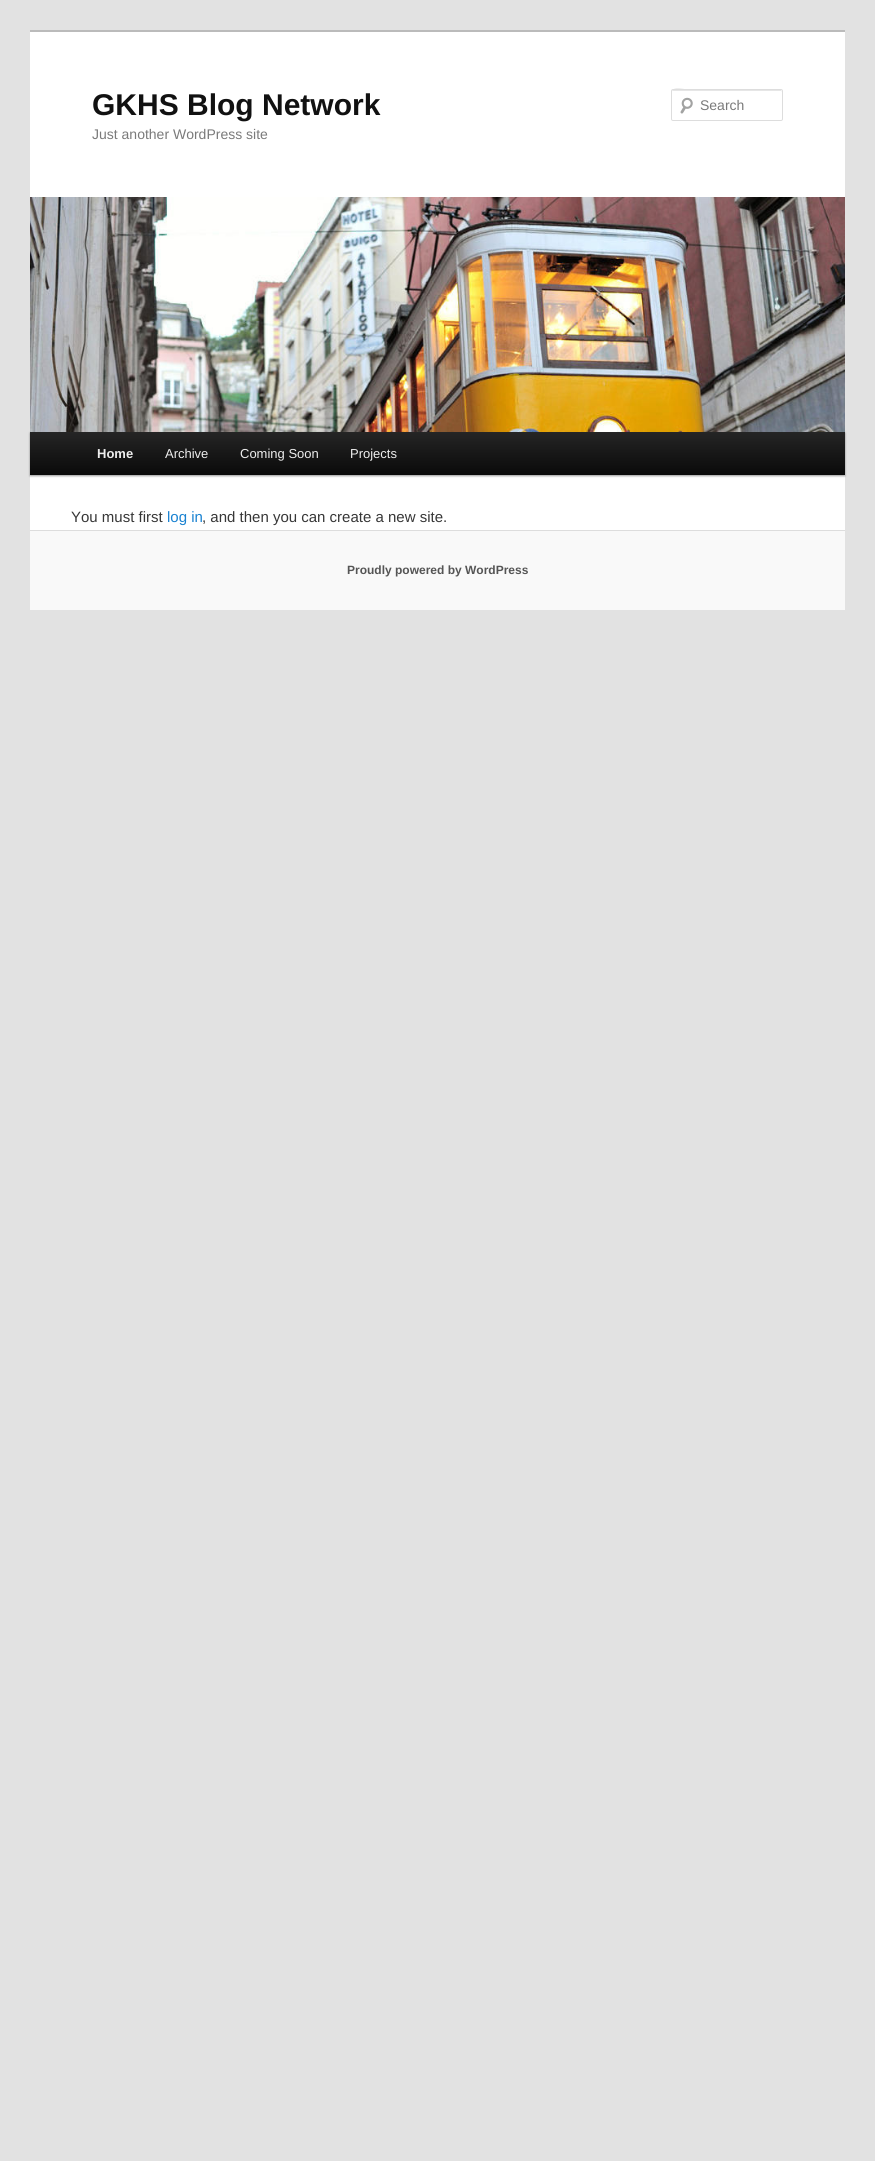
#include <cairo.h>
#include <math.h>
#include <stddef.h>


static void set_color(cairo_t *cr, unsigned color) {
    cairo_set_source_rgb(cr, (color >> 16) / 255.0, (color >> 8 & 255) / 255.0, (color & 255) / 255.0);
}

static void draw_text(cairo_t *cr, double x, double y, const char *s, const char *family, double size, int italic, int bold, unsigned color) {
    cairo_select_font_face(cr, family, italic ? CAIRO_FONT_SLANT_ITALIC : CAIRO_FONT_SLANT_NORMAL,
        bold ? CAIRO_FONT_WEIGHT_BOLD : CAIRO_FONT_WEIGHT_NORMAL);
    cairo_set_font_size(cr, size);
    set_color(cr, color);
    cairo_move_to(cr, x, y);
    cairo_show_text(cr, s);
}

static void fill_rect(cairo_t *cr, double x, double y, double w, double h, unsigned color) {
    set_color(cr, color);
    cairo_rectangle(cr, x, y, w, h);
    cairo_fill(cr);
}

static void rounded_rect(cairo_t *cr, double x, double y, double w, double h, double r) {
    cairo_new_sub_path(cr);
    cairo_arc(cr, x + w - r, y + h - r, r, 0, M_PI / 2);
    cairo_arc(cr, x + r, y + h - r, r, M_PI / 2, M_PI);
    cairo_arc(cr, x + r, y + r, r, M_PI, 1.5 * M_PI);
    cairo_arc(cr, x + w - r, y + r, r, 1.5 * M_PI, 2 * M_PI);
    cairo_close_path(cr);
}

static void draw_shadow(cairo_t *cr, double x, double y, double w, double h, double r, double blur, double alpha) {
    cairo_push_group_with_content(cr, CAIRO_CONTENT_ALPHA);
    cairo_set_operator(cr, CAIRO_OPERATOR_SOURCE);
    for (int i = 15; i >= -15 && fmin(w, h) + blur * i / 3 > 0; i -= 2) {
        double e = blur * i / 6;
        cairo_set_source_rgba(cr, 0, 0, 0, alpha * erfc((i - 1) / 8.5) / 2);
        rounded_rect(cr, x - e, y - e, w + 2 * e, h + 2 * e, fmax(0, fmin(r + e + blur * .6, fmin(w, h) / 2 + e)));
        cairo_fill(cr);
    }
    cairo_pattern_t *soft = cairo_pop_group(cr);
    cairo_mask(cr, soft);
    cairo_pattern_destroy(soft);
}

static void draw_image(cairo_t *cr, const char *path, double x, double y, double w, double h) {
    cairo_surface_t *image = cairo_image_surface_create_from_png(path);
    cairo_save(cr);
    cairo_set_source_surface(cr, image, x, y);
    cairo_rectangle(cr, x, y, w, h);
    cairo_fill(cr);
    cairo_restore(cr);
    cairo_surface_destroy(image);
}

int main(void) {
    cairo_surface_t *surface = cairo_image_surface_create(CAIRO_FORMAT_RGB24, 875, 2161);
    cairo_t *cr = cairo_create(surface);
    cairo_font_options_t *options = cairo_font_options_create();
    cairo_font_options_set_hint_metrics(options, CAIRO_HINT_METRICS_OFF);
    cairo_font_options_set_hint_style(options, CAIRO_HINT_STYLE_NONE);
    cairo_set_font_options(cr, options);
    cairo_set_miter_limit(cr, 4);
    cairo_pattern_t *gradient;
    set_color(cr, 0xE2E2E2);
    cairo_paint(cr);
    fill_rect(cr, 30, 32, 815, 498, 0xFFFFFF);
    fill_rect(cr, 30, 30, 815, 2, 0xBBBBBB);
    draw_text(cr, 92, 115, "GKHS Blog Network", "Liberation Sans", 30, 0, 1, 0x111111);
    draw_text(cr, 92, 139, "Just another WordPress site", "Liberation Sans", 14, 0, 0, 0x7A7A7A);
    draw_image(cr, "assets/img1.png", 680, 97, 13, 17);
    set_color(cr, 0xE6E6E6);
    cairo_new_path(cr);
    cairo_move_to(cr, 673, 91);
    cairo_line_to(cr, 782, 91);
    cairo_line_to(cr, 782, 92);
    cairo_line_to(cr, 781, 90);
    cairo_line_to(cr, 691, 90);
    cairo_curve_to(cr, 687, 90, 672, 85, 672, 92);
    cairo_curve_to(cr, 672, 91, 672, 91, 673, 91);
    cairo_close_path(cr);
    cairo_fill(cr);
    rounded_rect(cr, 671.5, 89.5, 111, 31, 1.5);
    set_color(cr, 0xDDDDDD);
    cairo_set_line_width(cr, 1);
    cairo_stroke(cr);
    draw_text(cr, 700, 110, "Search", "Liberation Sans", 14, 0, 0, 0x7A7A7A);
    set_color(cr, 0x000000);
    draw_shadow(cr, 30, 433, 815, 43, 0, 1, 0.4);
    draw_image(cr, "assets/img2.png", 30, 197, 815, 235);
    gradient = cairo_pattern_create_linear(438, 432, 438, 475);
    cairo_pattern_add_color_stop_rgba(gradient, 0, 0.145, 0.145, 0.145, 1);
    cairo_pattern_add_color_stop_rgba(gradient, 1, 0.039, 0.039, 0.039, 1);
    cairo_set_source(cr, gradient);
    cairo_pattern_destroy(gradient);
    cairo_rectangle(cr, 30, 432, 815, 43);
    cairo_fill(cr);
    draw_text(cr, 97, 458, "Home", "Liberation Sans", 13, 0, 1, 0xEEEEEE);
    draw_text(cr, 165, 458, "Archive", "Liberation Sans", 13, 0, 0, 0xEEEEEE);
    draw_text(cr, 240, 458, "Coming Soon", "Liberation Sans", 13, 0, 0, 0xEEEEEE);
    draw_text(cr, 350, 458, "Projects", "Liberation Sans", 13, 0, 0, 0xEEEEEE);
    draw_text(cr, 71, 522, "You must first", "Liberation Sans", 15, 0, 0, 0x373737);
    draw_text(cr, 167, 522, "log in", "Liberation Sans", 15, 0, 0, 0x1982D1);
    draw_text(cr, 202, 522, ", and then you can create a new site.", "Liberation Sans", 15, 0, 0, 0x373737);
    fill_rect(cr, 30, 531, 815, 79, 0xF9F9F9);
    fill_rect(cr, 30, 530, 815, 1, 0xDDDDDD);
    draw_text(cr, 347, 574, "Proudly powered by WordPress", "Liberation Sans", 12, 0, 1, 0x555555);
    cairo_surface_write_to_png(surface, "output.png");
    cairo_font_options_destroy(options);
    cairo_destroy(cr);
    cairo_surface_destroy(surface);
    return 0;
}
